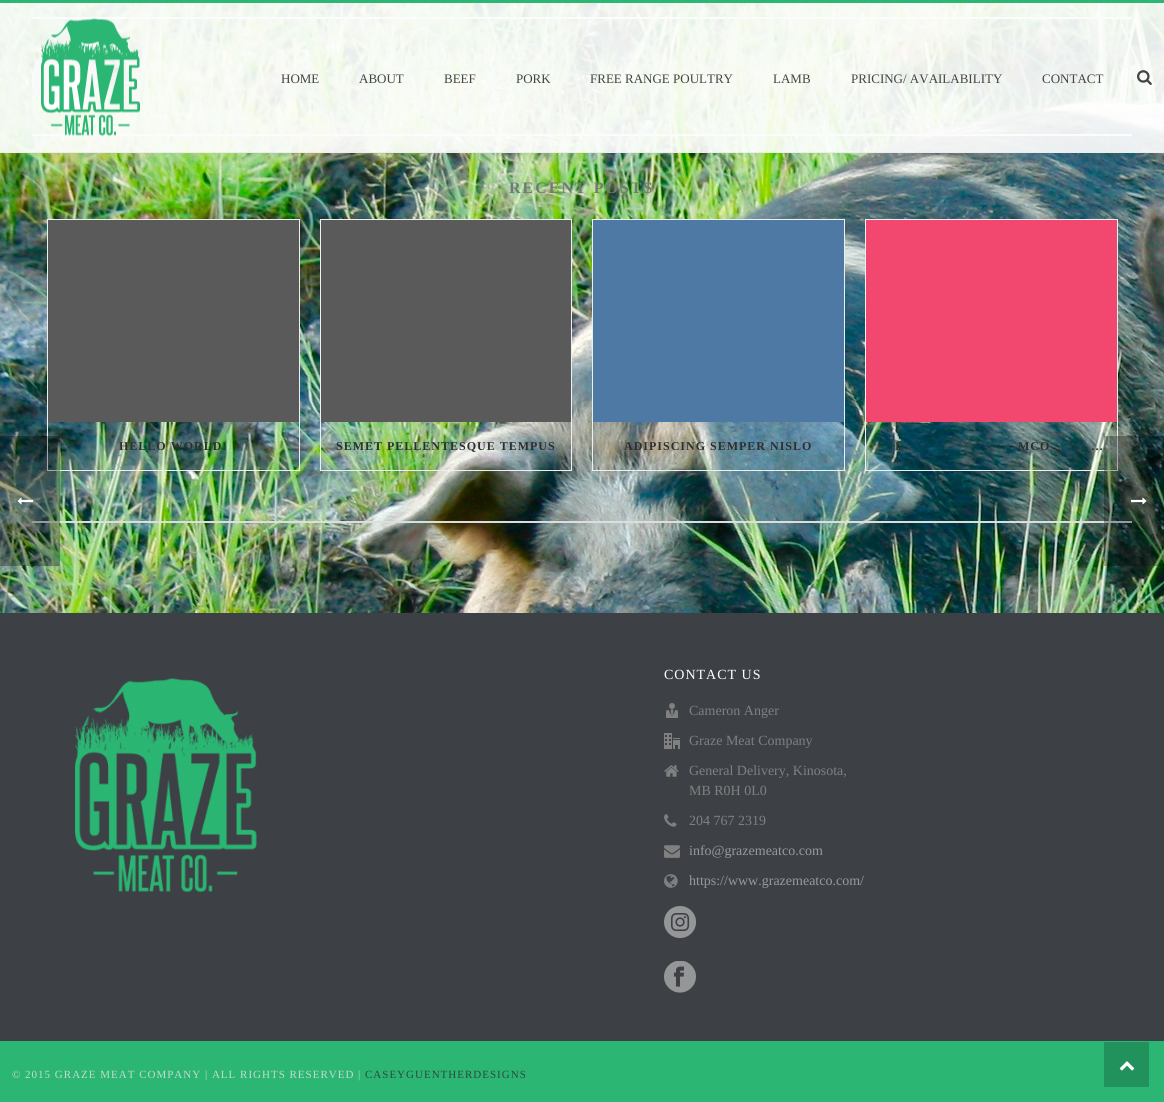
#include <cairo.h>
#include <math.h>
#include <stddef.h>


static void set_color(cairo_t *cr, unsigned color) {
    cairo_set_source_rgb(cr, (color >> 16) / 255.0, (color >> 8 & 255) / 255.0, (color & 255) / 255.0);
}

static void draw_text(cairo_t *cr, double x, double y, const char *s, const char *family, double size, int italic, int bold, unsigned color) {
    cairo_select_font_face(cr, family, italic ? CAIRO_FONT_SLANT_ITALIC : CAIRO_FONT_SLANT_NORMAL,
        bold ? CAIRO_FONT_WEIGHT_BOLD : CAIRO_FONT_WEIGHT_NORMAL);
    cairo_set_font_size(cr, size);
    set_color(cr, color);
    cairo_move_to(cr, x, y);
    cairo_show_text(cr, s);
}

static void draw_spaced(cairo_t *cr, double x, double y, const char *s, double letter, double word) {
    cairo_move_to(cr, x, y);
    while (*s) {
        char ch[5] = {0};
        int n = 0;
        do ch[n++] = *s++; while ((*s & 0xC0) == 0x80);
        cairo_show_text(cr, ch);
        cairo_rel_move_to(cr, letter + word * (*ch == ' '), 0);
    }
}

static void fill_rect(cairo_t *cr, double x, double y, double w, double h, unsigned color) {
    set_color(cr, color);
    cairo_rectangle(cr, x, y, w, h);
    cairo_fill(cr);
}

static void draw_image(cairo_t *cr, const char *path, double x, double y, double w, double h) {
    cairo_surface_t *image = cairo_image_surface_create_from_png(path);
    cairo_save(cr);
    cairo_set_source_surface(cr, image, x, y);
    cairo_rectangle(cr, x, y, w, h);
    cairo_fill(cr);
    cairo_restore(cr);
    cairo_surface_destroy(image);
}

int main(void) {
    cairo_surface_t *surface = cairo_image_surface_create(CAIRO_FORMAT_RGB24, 1164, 1102);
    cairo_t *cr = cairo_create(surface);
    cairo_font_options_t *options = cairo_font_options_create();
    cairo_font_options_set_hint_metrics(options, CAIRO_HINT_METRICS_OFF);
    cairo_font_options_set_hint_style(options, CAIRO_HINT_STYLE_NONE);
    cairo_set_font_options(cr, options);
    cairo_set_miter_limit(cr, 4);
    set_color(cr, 0x3D4045);
    cairo_paint(cr);
    fill_rect(cr, 0, 0, 1164, 3, 0x2BB673);
    draw_image(cr, "assets/img3.png", 0, 3, 1164, 610);
    fill_rect(cr, 0, 152, 1164, 1, 0xEDEDED);
    fill_rect(cr, 32, 17, 1100, 2, 0xDDDDDD);
    fill_rect(cr, 32, 134, 1100, 2, 0xDDDDDD);
    cairo_arc(cr, 65.5, 80.5, 33, 0, 2 * M_PI);
    set_color(cr, 0xEEEEEE);
    cairo_set_line_width(cr, 1);
    cairo_stroke(cr);
    draw_image(cr, "assets/img4.png", 33, 48, 65, 65);
    draw_image(cr, "assets/img5.png", 116, 74, 16, 12);
    cairo_set_source_rgba(cr, 1, 1, 1, 0.9);
    cairo_rectangle(cr, 0, 3, 1164, 149);
    cairo_fill(cr);
    draw_image(cr, "assets/img1.png", 41, 18, 99, 118);
    draw_text(cr, 281, 83, "HOME", "Liberation Serif", 13, 0, 0, 0x444444);
    draw_text(cr, 359, 83, "ABOUT", "Liberation Serif", 13, 0, 0, 0x444444);
    draw_text(cr, 444, 83, "BEEF", "Liberation Serif", 13, 0, 0, 0x444444);
    draw_text(cr, 516, 83, "PORK", "Liberation Serif", 13, 0, 0, 0x444444);
    draw_text(cr, 590, 83, "FREE RANGE POULTRY", "Liberation Serif", 13, 0, 0, 0x444444);
    draw_text(cr, 773, 83, "LAMB", "Liberation Serif", 13, 0, 0, 0x444444);
    draw_text(cr, 851, 83, "PRICING/ AVAILABILITY", "Liberation Serif", 13, 0, 0, 0x444444);
    draw_text(cr, 1042, 83, "CONTACT", "Liberation Serif", 13, 0, 0, 0x444444);
    draw_image(cr, "assets/img2.png", 1137, 70, 15, 15);
    fill_rect(cr, 32, 521, 1100, 2, 0xDDDDDD);
    cairo_select_font_face(cr, "Liberation Serif", CAIRO_FONT_SLANT_NORMAL, CAIRO_FONT_WEIGHT_BOLD);
    cairo_set_font_size(cr, 16);
    set_color(cr, 0x777777);
    draw_spaced(cr, 509, 193, "RECENT POSTS", 2, 0);
    cairo_rectangle(cr, 47.5, 219.5, 252, 251);
    set_color(cr, 0xEFEFEF);
    cairo_stroke(cr);
    fill_rect(cr, 48, 220, 251, 202, 0x5A5A5A);
    cairo_set_font_size(cr, 12);
    set_color(cr, 0x2E2E2E);
    draw_spaced(cr, 119, 450, "HELLO WORLD!", 1, 0);
    cairo_rectangle(cr, 320.5, 219.5, 251, 251);
    set_color(cr, 0xEFEFEF);
    cairo_stroke(cr);
    fill_rect(cr, 321, 220, 250, 202, 0x5A5A5A);
    set_color(cr, 0x2E2E2E);
    draw_spaced(cr, 336, 450, "SEMET PELLENTESQUE TEMPUS", 1, 0);
    cairo_rectangle(cr, 592.5, 219.5, 252, 251);
    set_color(cr, 0xEFEFEF);
    cairo_stroke(cr);
    fill_rect(cr, 593, 220, 251, 202, 0x4E79A5);
    set_color(cr, 0x2E2E2E);
    draw_spaced(cr, 624, 450, "ADIPISCING SEMPER NISLO", 1, 0);
    cairo_rectangle(cr, 865.5, 219.5, 252, 251);
    set_color(cr, 0xEFEFEF);
    cairo_stroke(cr);
    fill_rect(cr, 866, 220, 251, 202, 0xF2486F);
    set_color(cr, 0x2E2E2E);
    draw_spaced(cr, 895, 450, "L", 1, 0);
    draw_spaced(cr, 1018, 450, "MCO", 1, 0);
    draw_spaced(cr, 1091, 450, "…", 1, 0);
    draw_image(cr, "assets/img6.png", 75, 678, 182, 215);
    cairo_select_font_face(cr, "Liberation Serif", CAIRO_FONT_SLANT_NORMAL, CAIRO_FONT_WEIGHT_NORMAL);
    cairo_set_font_size(cr, 14);
    set_color(cr, 0xFFFFFF);
    draw_spaced(cr, 664, 679, "CONTACT US", 1, 0);
    draw_image(cr, "assets/img7.png", 666, 703, 12, 15);
    draw_text(cr, 689, 715, "Cameron Anger", "Liberation Serif", 14, 0, 0, 0x808080);
    draw_image(cr, "assets/img8.png", 664, 733, 16, 16);
    draw_text(cr, 689, 745, "Graze Meat Company", "Liberation Serif", 14, 0, 0, 0x808080);
    draw_image(cr, "assets/img9.png", 664, 765, 15, 12);
    draw_text(cr, 689, 775, "General Delivery, Kinosota,", "Liberation Serif", 14, 0, 0, 0x808080);
    draw_text(cr, 689, 795, "MB R0H 0L0", "Liberation Serif", 14, 0, 0, 0x808080);
    draw_image(cr, "assets/img10.png", 664, 814, 13, 13);
    draw_text(cr, 689, 825, "204 767 2319", "Liberation Serif", 14, 0, 0, 0x808080);
    draw_image(cr, "assets/img11.png", 664, 845, 16, 13);
    draw_text(cr, 689, 855, "info@grazemeatco.com", "Liberation Serif", 14, 0, 0, 0x999999);
    draw_image(cr, "assets/img12.png", 664, 874, 14, 14);
    draw_text(cr, 689, 885, "https://www.grazemeatco.com/", "Liberation Serif", 14, 0, 0, 0x999999);
    draw_image(cr, "assets/img13.png", 664, 906, 32, 32);
    draw_image(cr, "assets/img14.png", 664, 961, 32, 32);
    fill_rect(cr, 0, 1041, 1164, 61, 0x2BB673);
    cairo_set_font_size(cr, 11);
    set_color(cr, 0xC2DCCB);
    draw_spaced(cr, 12, 1078, "© 2015 GRAZE MEAT COMPANY | ALL RIGHTS RESERVED |", 1, 0);
    set_color(cr, 0x2D493C);
    draw_spaced(cr, 365, 1078, "CASEYGUENTHERDESIGNS", 1, 0);
    cairo_set_source_rgba(cr, 0, 0, 0, 0.3);
    cairo_rectangle(cr, 0, 436, 60, 130);
    cairo_fill(cr);
    draw_image(cr, "assets/img15.png", 17, 497, 16, 8);
    cairo_rectangle(cr, 1104, 436, 60, 130);
    cairo_fill(cr);
    draw_image(cr, "assets/img16.png", 1131, 497, 16, 8);
    fill_rect(cr, 1104, 1042, 45, 45, 0x22925C);
    draw_image(cr, "assets/img17.png", 1119, 1061, 16, 10);
    cairo_surface_write_to_png(surface, "output.png");
    cairo_font_options_destroy(options);
    cairo_destroy(cr);
    cairo_surface_destroy(surface);
    return 0;
}
